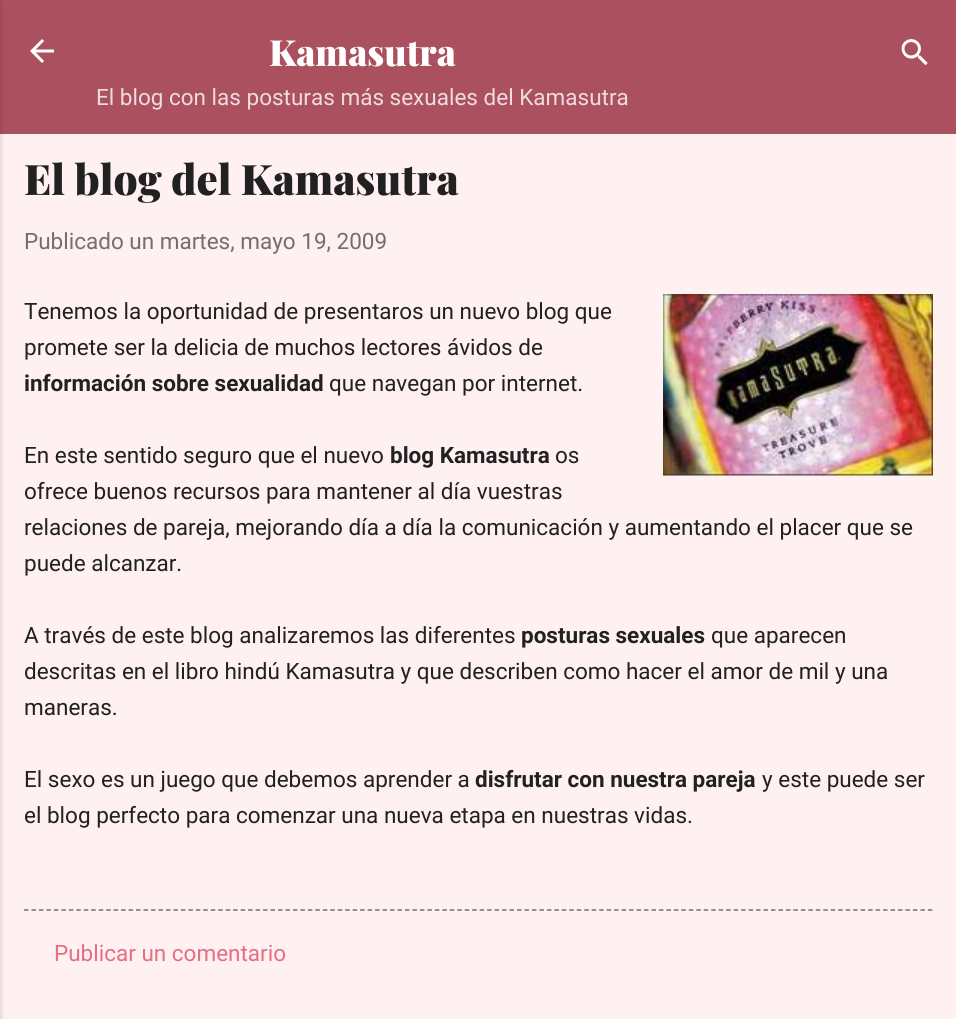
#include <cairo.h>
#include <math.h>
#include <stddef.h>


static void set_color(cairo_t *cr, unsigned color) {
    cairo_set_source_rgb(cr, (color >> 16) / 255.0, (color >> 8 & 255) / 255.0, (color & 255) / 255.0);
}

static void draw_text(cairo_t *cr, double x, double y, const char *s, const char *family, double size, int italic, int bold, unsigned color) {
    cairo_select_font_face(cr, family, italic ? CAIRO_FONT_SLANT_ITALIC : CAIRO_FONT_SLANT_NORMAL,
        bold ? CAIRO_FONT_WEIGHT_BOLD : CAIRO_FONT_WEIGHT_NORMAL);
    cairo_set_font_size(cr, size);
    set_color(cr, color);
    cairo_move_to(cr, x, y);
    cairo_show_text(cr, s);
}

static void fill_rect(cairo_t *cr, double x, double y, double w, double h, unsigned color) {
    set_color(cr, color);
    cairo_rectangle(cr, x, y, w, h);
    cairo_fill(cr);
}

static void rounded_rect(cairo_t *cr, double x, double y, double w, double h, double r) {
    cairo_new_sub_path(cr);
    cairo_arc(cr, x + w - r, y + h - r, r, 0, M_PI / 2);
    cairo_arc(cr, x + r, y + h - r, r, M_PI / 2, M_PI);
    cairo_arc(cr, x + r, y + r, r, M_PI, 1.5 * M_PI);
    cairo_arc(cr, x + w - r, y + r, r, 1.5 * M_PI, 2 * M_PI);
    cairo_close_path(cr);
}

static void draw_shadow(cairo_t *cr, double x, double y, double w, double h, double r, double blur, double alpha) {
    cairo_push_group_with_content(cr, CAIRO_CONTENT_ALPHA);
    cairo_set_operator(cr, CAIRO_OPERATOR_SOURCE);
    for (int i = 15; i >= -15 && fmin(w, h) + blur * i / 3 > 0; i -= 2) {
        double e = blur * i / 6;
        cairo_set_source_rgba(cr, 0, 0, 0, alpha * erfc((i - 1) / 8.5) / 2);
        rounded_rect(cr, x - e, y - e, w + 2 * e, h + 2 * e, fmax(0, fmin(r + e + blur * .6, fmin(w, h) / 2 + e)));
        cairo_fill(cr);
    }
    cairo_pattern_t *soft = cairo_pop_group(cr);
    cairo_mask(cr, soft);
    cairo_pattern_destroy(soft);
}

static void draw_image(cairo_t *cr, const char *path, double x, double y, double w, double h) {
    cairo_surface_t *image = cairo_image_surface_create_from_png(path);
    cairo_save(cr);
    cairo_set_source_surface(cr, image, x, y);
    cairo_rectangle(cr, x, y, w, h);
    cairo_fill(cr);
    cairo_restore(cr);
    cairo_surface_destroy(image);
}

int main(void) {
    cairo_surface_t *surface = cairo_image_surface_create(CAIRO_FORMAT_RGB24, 956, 1019);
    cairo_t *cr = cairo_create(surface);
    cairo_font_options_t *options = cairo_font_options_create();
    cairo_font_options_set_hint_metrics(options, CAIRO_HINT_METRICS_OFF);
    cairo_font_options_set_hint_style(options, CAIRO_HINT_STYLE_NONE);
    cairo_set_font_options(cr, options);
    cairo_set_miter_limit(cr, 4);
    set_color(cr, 0xAB505F);
    cairo_paint(cr);
    fill_rect(cr, 0, 134, 956, 885, 0xFFF0F2);
    set_color(cr, 0x000000);
    draw_shadow(cr, -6, 2, 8, 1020, 0, 2, 0.1);
    draw_image(cr, "assets/img1.png", 30, 39, 24, 24);
    draw_text(cr, 269, 66, "Kamasutra", "Playfair Display Black", 36, 0, 0, 0xFFFFFF);
    draw_text(cr, 96, 105, "El blog con las posturas más sexuales del Kamasutra", "Roboto", 22.5, 0, 0, 0xEEDCDF);
    draw_image(cr, "assets/img2.png", 901, 39, 27, 27);
    draw_text(cr, 24, 195, "El blog del Kamasutra", "Playfair Display Black", 42, 0, 0, 0x212121);
    draw_text(cr, 24, 249, "Publicado un martes, mayo 19, 2009", "Roboto", 22.5, 0, 0, 0x756E6F);
    draw_text(cr, 24, 319, "Tenemos la oportunidad de presentaros un nuevo blog que", "Roboto", 22.5, 0, 0, 0x212121);
    draw_image(cr, "assets/img3.png", 663, 294, 270, 182);
    draw_text(cr, 24, 355, "promete ser la delicia de muchos lectores ávidos de", "Roboto", 22.5, 0, 0, 0x212121);
    draw_text(cr, 24, 391, "información sobre sexualidad", "Roboto", 22.5, 0, 1, 0x212121);
    draw_text(cr, 329, 391, "que navegan por internet.", "Roboto", 22.5, 0, 0, 0x212121);
    draw_text(cr, 24, 463, "En este sentido seguro que el nuevo", "Roboto", 22.5, 0, 0, 0x212121);
    draw_text(cr, 390, 463, "blog Kamasutra", "Roboto", 22.5, 0, 1, 0x212121);
    draw_text(cr, 555, 463, "os", "Roboto", 22.5, 0, 0, 0x212121);
    draw_text(cr, 24, 499, "ofrece buenos recursos para mantener al día vuestras", "Roboto", 22.5, 0, 0, 0x212121);
    draw_text(cr, 24, 535, "relaciones de pareja, mejorando día a día la comunicación y aumentando el placer que se", "Roboto", 22.5, 0, 0, 0x212121);
    draw_text(cr, 24, 571, "puede alcanzar.", "Roboto", 22.5, 0, 0, 0x212121);
    draw_text(cr, 24, 643, "A través de este blog analizaremos las diferentes", "Roboto", 22.5, 0, 0, 0x212121);
    draw_text(cr, 521, 643, "posturas sexuales", "Roboto", 22.5, 0, 1, 0x212121);
    draw_text(cr, 711, 643, "que aparecen", "Roboto", 22.5, 0, 0, 0x212121);
    draw_text(cr, 24, 679, "descritas en el libro hindú Kamasutra y que describen como hacer el amor de mil y una", "Roboto", 22.5, 0, 0, 0x212121);
    draw_text(cr, 24, 715, "maneras.", "Roboto", 22.5, 0, 0, 0x212121);
    draw_text(cr, 24, 787, "El sexo es un juego que debemos aprender a", "Roboto", 22.5, 0, 0, 0x212121);
    draw_text(cr, 475, 787, "disfrutar con nuestra pareja", "Roboto", 22.5, 0, 1, 0x212121);
    draw_text(cr, 762, 787, "y este puede ser", "Roboto", 22.5, 0, 0, 0x212121);
    draw_text(cr, 24, 823, "el blog perfecto para comenzar una nueva etapa en nuestras vidas.", "Roboto", 22.5, 0, 0, 0x212121);
    cairo_new_path(cr);
    cairo_move_to(cr, 24, 910);
    cairo_line_to(cr, 933, 910);
    set_color(cr, 0x756E6F);
    cairo_set_line_width(cr, 1.5);
    cairo_set_dash(cr, (double[]){4.5, 2.97}, 2, 0);
    cairo_stroke(cr);
    draw_text(cr, 54, 961, "Publicar un comentario", "Roboto", 22.5, 0, 0, 0xE76D80);
    cairo_surface_write_to_png(surface, "output.png");
    cairo_font_options_destroy(options);
    cairo_destroy(cr);
    cairo_surface_destroy(surface);
    return 0;
}
